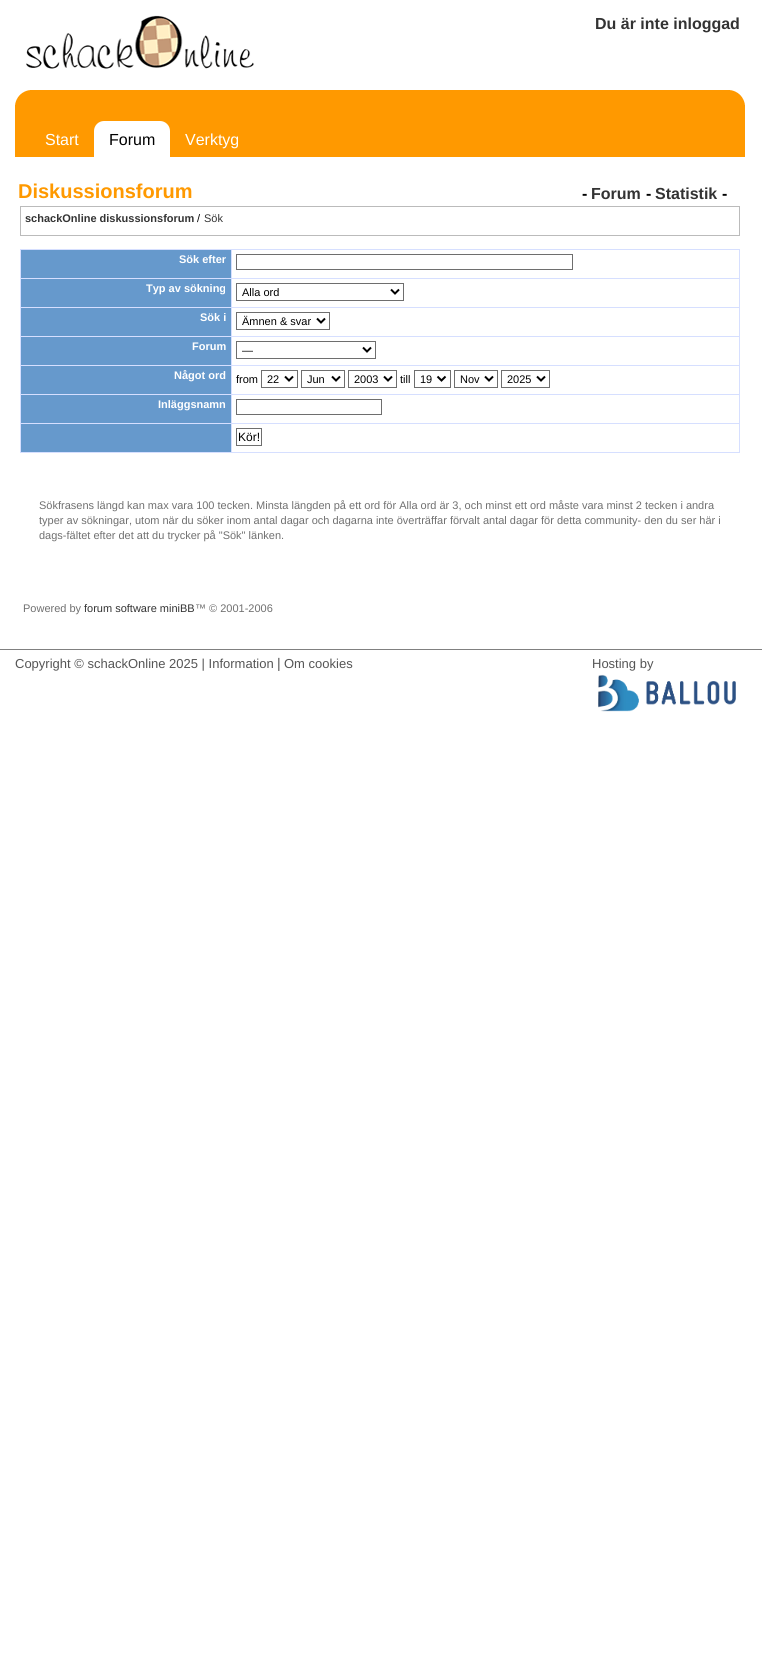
#include <cairo.h>
#include <math.h>
#include <stddef.h>


static void set_color(cairo_t *cr, unsigned color) {
    cairo_set_source_rgb(cr, (color >> 16) / 255.0, (color >> 8 & 255) / 255.0, (color & 255) / 255.0);
}

static void draw_text(cairo_t *cr, double x, double y, const char *s, const char *family, double size, int italic, int bold, unsigned color) {
    cairo_select_font_face(cr, family, italic ? CAIRO_FONT_SLANT_ITALIC : CAIRO_FONT_SLANT_NORMAL,
        bold ? CAIRO_FONT_WEIGHT_BOLD : CAIRO_FONT_WEIGHT_NORMAL);
    cairo_set_font_size(cr, size);
    set_color(cr, color);
    cairo_move_to(cr, x, y);
    cairo_show_text(cr, s);
}

static void fill_rect(cairo_t *cr, double x, double y, double w, double h, unsigned color) {
    set_color(cr, color);
    cairo_rectangle(cr, x, y, w, h);
    cairo_fill(cr);
}

static void draw_image(cairo_t *cr, const char *path, double x, double y, double w, double h) {
    cairo_surface_t *image = cairo_image_surface_create_from_png(path);
    cairo_save(cr);
    cairo_set_source_surface(cr, image, x, y);
    cairo_rectangle(cr, x, y, w, h);
    cairo_fill(cr);
    cairo_restore(cr);
    cairo_surface_destroy(image);
}

int main(void) {
    cairo_surface_t *surface = cairo_image_surface_create(CAIRO_FORMAT_RGB24, 762, 1668);
    cairo_t *cr = cairo_create(surface);
    cairo_font_options_t *options = cairo_font_options_create();
    cairo_font_options_set_hint_metrics(options, CAIRO_HINT_METRICS_OFF);
    cairo_font_options_set_hint_style(options, CAIRO_HINT_STYLE_NONE);
    cairo_set_font_options(cr, options);
    cairo_set_miter_limit(cr, 4);
    set_color(cr, 0xFFFFFF);
    cairo_paint(cr);
    draw_image(cr, "assets/img1.png", 26, 15, 228, 54);
    draw_text(cr, 595, 29, "Du är inte inloggad", "Liberation Sans", 16, 0, 1, 0x333333);
    fill_rect(cr, 15, 90, 730, 67, 0xFF9900);
    draw_image(cr, "assets/img2.png", 730, 90, 15, 15);
    draw_image(cr, "assets/img3.png", 15, 90, 15, 15);
    draw_text(cr, 45, 145, "Start", "Liberation Sans", 16, 0, 0, 0xFFFFFF);
    cairo_new_path(cr);
    cairo_move_to(cr, 104, 121);
    cairo_line_to(cr, 160, 121);
    cairo_curve_to(cr, 165.5, 121, 170, 125.5, 170, 131);
    cairo_line_to(cr, 170, 157);
    cairo_line_to(cr, 94, 157);
    cairo_line_to(cr, 94, 131);
    cairo_curve_to(cr, 94, 125.5, 98.5, 121, 104, 121);
    cairo_close_path(cr);
    cairo_fill(cr);
    draw_text(cr, 109, 145, "Forum", "Liberation Sans", 16, 0, 0, 0x000000);
    draw_text(cr, 185, 145, "Verktyg", "Liberation Sans", 16, 0, 0, 0xFFFFFF);
    draw_text(cr, 18, 198, "Diskussionsforum", "Liberation Sans", 20, 0, 1, 0xFF9900);
    draw_text(cr, 582, 199, "-", "Liberation Sans", 16, 0, 1, 0x000000);
    draw_text(cr, 591, 199, "Forum", "Liberation Sans", 16, 0, 1, 0x333333);
    draw_text(cr, 646, 199, "-", "Liberation Sans", 16, 0, 1, 0x000000);
    draw_text(cr, 655, 199, "Statistik", "Liberation Sans", 16, 0, 1, 0x333333);
    draw_text(cr, 722, 199, "-", "Liberation Sans", 16, 0, 1, 0x000000);
    fill_rect(cr, 20, 206, 720, 1, 0xBBBBBB);
    fill_rect(cr, 739, 206, 1, 30, 0xBBBBBB);
    fill_rect(cr, 20, 235, 720, 1, 0xBBBBBB);
    fill_rect(cr, 20, 206, 1, 30, 0xBBBBBB);
    draw_text(cr, 25, 222, "schackOnline diskussionsforum", "Liberation Sans", 11, 0, 1, 0x333333);
    draw_text(cr, 197, 222, "/", "Liberation Sans", 11, 0, 0, 0x000000);
    draw_text(cr, 204, 222, "Sök", "Liberation Sans", 11, 0, 0, 0x333333);
    fill_rect(cr, 21, 250, 210, 28, 0x6699CC);
    fill_rect(cr, 231, 249, 509, 1, 0xD6DFFF);
    fill_rect(cr, 231, 278, 509, 1, 0xD6DFFF);
    fill_rect(cr, 231, 307, 509, 1, 0xD6DFFF);
    fill_rect(cr, 231, 336, 509, 1, 0xD6DFFF);
    fill_rect(cr, 231, 365, 509, 1, 0xD6DFFF);
    fill_rect(cr, 231, 394, 509, 1, 0xD6DFFF);
    fill_rect(cr, 231, 423, 509, 1, 0xD6DFFF);
    fill_rect(cr, 739, 423, 1, 30, 0xD6DFFF);
    fill_rect(cr, 231, 452, 509, 1, 0xD6DFFF);
    fill_rect(cr, 231, 423, 1, 30, 0xD6DFFF);
    fill_rect(cr, 20, 423, 212, 1, 0xD6DFFF);
    fill_rect(cr, 231, 394, 1, 30, 0xD6DFFF);
    fill_rect(cr, 20, 394, 212, 1, 0xD6DFFF);
    fill_rect(cr, 231, 365, 1, 30, 0xD6DFFF);
    fill_rect(cr, 20, 365, 212, 1, 0xD6DFFF);
    fill_rect(cr, 231, 336, 1, 30, 0xD6DFFF);
    fill_rect(cr, 20, 336, 212, 1, 0xD6DFFF);
    fill_rect(cr, 231, 307, 1, 30, 0xD6DFFF);
    fill_rect(cr, 20, 307, 212, 1, 0xD6DFFF);
    fill_rect(cr, 231, 278, 1, 30, 0xD6DFFF);
    fill_rect(cr, 20, 278, 212, 1, 0xD6DFFF);
    fill_rect(cr, 231, 249, 1, 30, 0xD6DFFF);
    fill_rect(cr, 20, 249, 212, 1, 0xD6DFFF);
    fill_rect(cr, 20, 452, 212, 1, 0xD6DFFF);
    fill_rect(cr, 20, 423, 1, 30, 0xD6DFFF);
    fill_rect(cr, 20, 394, 1, 30, 0xD6DFFF);
    fill_rect(cr, 20, 365, 1, 30, 0xD6DFFF);
    fill_rect(cr, 20, 336, 1, 30, 0xD6DFFF);
    fill_rect(cr, 20, 307, 1, 30, 0xD6DFFF);
    fill_rect(cr, 20, 278, 1, 30, 0xD6DFFF);
    fill_rect(cr, 20, 249, 1, 30, 0xD6DFFF);
    draw_text(cr, 179, 263, "Sök efter", "Liberation Sans", 11, 0, 1, 0xFFFFFF);
    fill_rect(cr, 739, 394, 1, 30, 0xD6DFFF);
    fill_rect(cr, 739, 365, 1, 30, 0xD6DFFF);
    fill_rect(cr, 739, 336, 1, 30, 0xD6DFFF);
    fill_rect(cr, 739, 307, 1, 30, 0xD6DFFF);
    fill_rect(cr, 739, 278, 1, 30, 0xD6DFFF);
    fill_rect(cr, 739, 249, 1, 30, 0xD6DFFF);
    cairo_rectangle(cr, 236.5, 254.5, 336, 15);
    set_color(cr, 0x6E6E6E);
    cairo_set_line_width(cr, 1);
    cairo_stroke(cr);
    fill_rect(cr, 21, 279, 210, 28, 0x6699CC);
    draw_text(cr, 146, 292, "Typ av sökning", "Liberation Sans", 11, 0, 1, 0xFFFFFF);
    cairo_rectangle(cr, 236.5, 283.5, 167, 17);
    set_color(cr, 0x6E6E6E);
    cairo_stroke(cr);
    cairo_new_path(cr);
    cairo_move_to(cr, 391, 289.5);
    cairo_line_to(cr, 395, 293.5);
    cairo_line_to(cr, 399, 289.5);
    set_color(cr, 0x000000);
    cairo_set_line_width(cr, 2);
    cairo_stroke(cr);
    draw_text(cr, 242, 296, "Alla ord", "Liberation Sans", 11, 0, 0, 0x000000);
    fill_rect(cr, 21, 308, 210, 28, 0x6699CC);
    draw_text(cr, 200, 321, "Sök i", "Liberation Sans", 11, 0, 1, 0xFFFFFF);
    cairo_rectangle(cr, 236.5, 312.5, 93, 17);
    set_color(cr, 0x6E6E6E);
    cairo_set_line_width(cr, 1);
    cairo_stroke(cr);
    cairo_new_path(cr);
    cairo_move_to(cr, 317, 318.5);
    cairo_line_to(cr, 321, 322.5);
    cairo_line_to(cr, 325, 318.5);
    set_color(cr, 0x000000);
    cairo_set_line_width(cr, 2);
    cairo_stroke(cr);
    draw_text(cr, 242, 325, "Ämnen & svar", "Liberation Sans", 11, 0, 0, 0x000000);
    fill_rect(cr, 21, 337, 210, 28, 0x6699CC);
    draw_text(cr, 192, 350, "Forum", "Liberation Sans", 11, 0, 1, 0xFFFFFF);
    cairo_rectangle(cr, 236.5, 341.5, 139, 17);
    set_color(cr, 0x6E6E6E);
    cairo_set_line_width(cr, 1);
    cairo_stroke(cr);
    cairo_new_path(cr);
    cairo_move_to(cr, 363, 347.5);
    cairo_line_to(cr, 367, 351.5);
    cairo_line_to(cr, 371, 347.5);
    set_color(cr, 0x000000);
    cairo_set_line_width(cr, 2);
    cairo_stroke(cr);
    draw_text(cr, 242, 354, "—", "Liberation Sans", 11, 0, 0, 0x000000);
    fill_rect(cr, 21, 366, 210, 28, 0x6699CC);
    draw_text(cr, 174, 379, "Något ord", "Liberation Sans", 11, 0, 1, 0xFFFFFF);
    draw_text(cr, 236, 383, "from", "Liberation Sans", 11, 0, 0, 0x000000);
    cairo_rectangle(cr, 261.5, 370.5, 36, 17);
    set_color(cr, 0x6E6E6E);
    cairo_set_line_width(cr, 1);
    cairo_stroke(cr);
    cairo_new_path(cr);
    cairo_move_to(cr, 285, 376.5);
    cairo_line_to(cr, 289, 380.5);
    cairo_line_to(cr, 293, 376.5);
    set_color(cr, 0x000000);
    cairo_set_line_width(cr, 2);
    cairo_stroke(cr);
    draw_text(cr, 267, 383, "22", "Liberation Sans", 11, 0, 0, 0x000000);
    cairo_rectangle(cr, 301.5, 370.5, 43, 17);
    set_color(cr, 0x6E6E6E);
    cairo_set_line_width(cr, 1);
    cairo_stroke(cr);
    cairo_new_path(cr);
    cairo_move_to(cr, 332, 376.5);
    cairo_line_to(cr, 336, 380.5);
    cairo_line_to(cr, 340, 376.5);
    set_color(cr, 0x000000);
    cairo_set_line_width(cr, 2);
    cairo_stroke(cr);
    draw_text(cr, 307, 383, "Jun", "Liberation Sans", 11, 0, 0, 0x000000);
    cairo_rectangle(cr, 348.5, 370.5, 48, 17);
    set_color(cr, 0x6E6E6E);
    cairo_set_line_width(cr, 1);
    cairo_stroke(cr);
    cairo_new_path(cr);
    cairo_move_to(cr, 384, 376.5);
    cairo_line_to(cr, 388, 380.5);
    cairo_line_to(cr, 392, 376.5);
    set_color(cr, 0x000000);
    cairo_set_line_width(cr, 2);
    cairo_stroke(cr);
    draw_text(cr, 354, 383, "2003", "Liberation Sans", 11, 0, 0, 0x000000);
    draw_text(cr, 400, 383, "till", "Liberation Sans", 11, 0, 0, 0x000000);
    cairo_rectangle(cr, 414.5, 370.5, 36, 17);
    set_color(cr, 0x6E6E6E);
    cairo_set_line_width(cr, 1);
    cairo_stroke(cr);
    cairo_new_path(cr);
    cairo_move_to(cr, 437.5, 376.5);
    cairo_line_to(cr, 441.5, 380.5);
    cairo_line_to(cr, 445.5, 376.5);
    set_color(cr, 0x000000);
    cairo_set_line_width(cr, 2);
    cairo_stroke(cr);
    draw_text(cr, 420, 383, "19", "Liberation Sans", 11, 0, 0, 0x000000);
    cairo_rectangle(cr, 454.5, 370.5, 43, 17);
    set_color(cr, 0x6E6E6E);
    cairo_set_line_width(cr, 1);
    cairo_stroke(cr);
    cairo_new_path(cr);
    cairo_move_to(cr, 485, 376.5);
    cairo_line_to(cr, 489, 380.5);
    cairo_line_to(cr, 493, 376.5);
    set_color(cr, 0x000000);
    cairo_set_line_width(cr, 2);
    cairo_stroke(cr);
    draw_text(cr, 460, 383, "Nov", "Liberation Sans", 11, 0, 0, 0x000000);
    cairo_rectangle(cr, 501.5, 370.5, 48, 17);
    set_color(cr, 0x6E6E6E);
    cairo_set_line_width(cr, 1);
    cairo_stroke(cr);
    cairo_new_path(cr);
    cairo_move_to(cr, 537, 376.5);
    cairo_line_to(cr, 541, 380.5);
    cairo_line_to(cr, 545, 376.5);
    set_color(cr, 0x000000);
    cairo_set_line_width(cr, 2);
    cairo_stroke(cr);
    draw_text(cr, 507, 383, "2025", "Liberation Sans", 11, 0, 0, 0x000000);
    fill_rect(cr, 21, 395, 210, 28, 0x6699CC);
    draw_text(cr, 158, 408, "Inläggsnamn", "Liberation Sans", 11, 0, 1, 0xFFFFFF);
    cairo_rectangle(cr, 236.5, 399.5, 145, 15);
    set_color(cr, 0x6E6E6E);
    cairo_set_line_width(cr, 1);
    cairo_stroke(cr);
    fill_rect(cr, 21, 424, 210, 28, 0x6699CC);
    cairo_rectangle(cr, 236.5, 428.5, 25, 17);
    set_color(cr, 0x6E6E6E);
    cairo_stroke(cr);
    draw_text(cr, 238, 441, "Kör!", "Liberation Sans", 12, 0, 0, 0x000000);
    draw_text(cr, 39, 509, "Sökfrasens längd kan max vara 100 tecken. Minsta längden på ett ord för Alla ord är 3, och minst ett ord måste vara minst 2 tecken i andra", "Liberation Sans", 11, 0, 0, 0x707070);
    draw_text(cr, 39, 524, "typer av sökningar, utom när du söker inom antal dagar och dagarna inte överträffar förvalt antal dagar för detta community- den du ser här i", "Liberation Sans", 11, 0, 0, 0x707070);
    draw_text(cr, 39, 539, "dags-fältet efter det att du trycker på \"Sök\" länken.", "Liberation Sans", 11, 0, 0, 0x707070);
    draw_text(cr, 23, 612, "Powered by", "Liberation Sans", 11, 0, 0, 0x707070);
    draw_text(cr, 84, 612, "forum software miniBB", "Liberation Sans", 11, 0, 0, 0x333333);
    draw_text(cr, 195, 612, "™ © 2001-2006", "Liberation Sans", 11, 0, 0, 0x707070);
    fill_rect(cr, 0, 649, 762, 1, 0x808080);
    draw_text(cr, 15, 668, "Copyright © schackOnline 2025 | Information", "Liberation Sans", 13, 0, 0, 0x555555);
    draw_text(cr, 277, 668, "|", "Liberation Sans", 14, 0, 0, 0x555555);
    draw_text(cr, 284, 668, "Om cookies", "Liberation Sans", 13, 0, 0, 0x555555);
    draw_text(cr, 592, 668, "Hosting by", "Liberation Sans", 13, 0, 0, 0x555555);
    draw_image(cr, "assets/img4.png", 598, 674, 138, 38);
    cairo_surface_write_to_png(surface, "output.png");
    cairo_font_options_destroy(options);
    cairo_destroy(cr);
    cairo_surface_destroy(surface);
    return 0;
}
